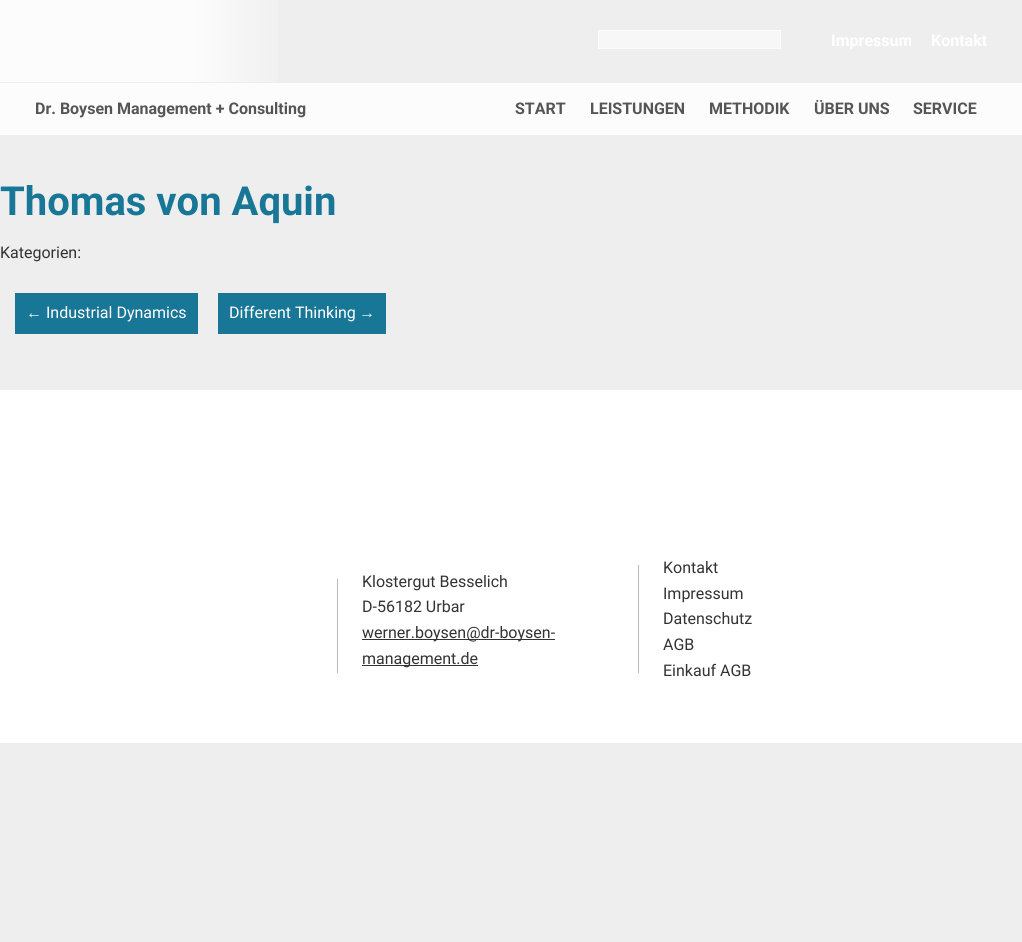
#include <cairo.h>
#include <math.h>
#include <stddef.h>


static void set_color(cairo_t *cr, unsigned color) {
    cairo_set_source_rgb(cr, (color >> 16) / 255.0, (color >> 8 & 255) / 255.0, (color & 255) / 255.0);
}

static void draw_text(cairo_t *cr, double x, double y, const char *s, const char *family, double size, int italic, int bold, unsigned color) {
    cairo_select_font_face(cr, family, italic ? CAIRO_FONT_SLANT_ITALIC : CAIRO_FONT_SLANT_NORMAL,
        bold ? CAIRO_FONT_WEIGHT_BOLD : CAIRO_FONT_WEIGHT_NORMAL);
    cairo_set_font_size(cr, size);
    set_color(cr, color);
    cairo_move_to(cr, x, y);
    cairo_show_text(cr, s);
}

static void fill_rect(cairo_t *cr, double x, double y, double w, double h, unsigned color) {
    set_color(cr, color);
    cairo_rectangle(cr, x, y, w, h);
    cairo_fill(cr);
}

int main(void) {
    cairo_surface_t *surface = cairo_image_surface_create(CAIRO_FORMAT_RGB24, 1022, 942);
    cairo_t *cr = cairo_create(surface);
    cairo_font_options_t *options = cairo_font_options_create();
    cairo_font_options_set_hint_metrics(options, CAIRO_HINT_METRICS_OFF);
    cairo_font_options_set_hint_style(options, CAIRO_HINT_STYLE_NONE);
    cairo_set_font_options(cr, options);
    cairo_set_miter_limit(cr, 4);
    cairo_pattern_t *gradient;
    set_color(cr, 0xEEEEEE);
    cairo_paint(cr);
    gradient = cairo_pattern_create_linear(0, 41, 1022, 41);
    cairo_pattern_add_color_stop_rgba(gradient, 0, 0.988, 0.988, 0.988, 1);
    cairo_pattern_add_color_stop_rgba(gradient, 0.19, 0.988, 0.988, 0.988, 1);
    cairo_pattern_add_color_stop_rgba(gradient, 0.29, 0.933, 0.933, 0.933, 1);
    cairo_set_source(cr, gradient);
    cairo_pattern_destroy(gradient);
    cairo_rectangle(cr, 0, 0, 278, 82);
    cairo_fill(cr);
    set_color(cr, 0xF7F7F7);
    cairo_rectangle(cr, 598.5, 30.5, 182, 18);
    cairo_fill_preserve(cr);
    set_color(cr, 0xFDFDFD);
    cairo_set_line_width(cr, 1);
    cairo_stroke(cr);
    draw_text(cr, 831, 46, "Impressum", "Roboto", 16, 0, 1, 0xFFFFFF);
    draw_text(cr, 931, 46, "Kontakt", "Roboto", 16, 0, 1, 0xFFFFFF);
    fill_rect(cr, 0, 83, 1022, 52, 0xFCFCFC);
    draw_text(cr, 35, 114, "Dr. Boysen Management + Consulting", "Roboto", 16, 0, 1, 0x555555);
    draw_text(cr, 515, 114, "START", "Roboto", 16, 0, 1, 0x555555);
    draw_text(cr, 590, 114, "LEISTUNGEN", "Roboto", 16, 0, 1, 0x555555);
    draw_text(cr, 709, 114, "METHODIK", "Roboto", 16, 0, 1, 0x555555);
    draw_text(cr, 814, 114, "ÜBER UNS", "Roboto", 16, 0, 1, 0x555555);
    draw_text(cr, 913, 114, "SERVICE", "Roboto", 16, 0, 1, 0x555555);
    draw_text(cr, 0, 215, "Thomas von Aquin", "Roboto", 40, 0, 1, 0x187697);
    draw_text(cr, 0, 258, "Kategorien:", "Roboto", 16, 0, 0, 0x333333);
    fill_rect(cr, 15, 293, 183, 41, 0x187697);
    draw_text(cr, 26, 318, "←", "Liberation Sans", 16, 0, 0, 0xFFFFFF);
    draw_text(cr, 46, 318, "Industrial Dynamics", "Roboto", 16, 0, 0, 0xFFFFFF);
    fill_rect(cr, 218, 293, 168, 41, 0x187697);
    draw_text(cr, 229, 318, "Different Thinking", "Roboto", 16, 0, 0, 0xFFFFFF);
    draw_text(cr, 359, 318, "→", "Liberation Sans", 16, 0, 0, 0xFFFFFF);
    fill_rect(cr, 0, 390, 1022, 353, 0xFFFFFF);
    fill_rect(cr, 337, 579, 1, 94, 0xB7B7B7);
    draw_text(cr, 362, 587, "Klostergut Besselich", "Roboto", 16, 0, 0, 0x333333);
    draw_text(cr, 362, 612, "D-56182 Urbar", "Roboto", 16, 0, 0, 0x333333);
    fill_rect(cr, 362, 639, 193, 1, 0x333333);
    draw_text(cr, 362, 638, "werner.boysen@dr-boysen-", "Roboto", 16, 0, 0, 0x333333);
    fill_rect(cr, 362, 665, 116, 1, 0x333333);
    draw_text(cr, 362, 664, "management.de", "Roboto", 16, 0, 0, 0x333333);
    fill_rect(cr, 638, 565, 1, 108, 0xB7B7B7);
    draw_text(cr, 663, 573, "Kontakt", "Roboto", 16, 0, 0, 0x333333);
    draw_text(cr, 663, 599, "Impressum", "Roboto", 16, 0, 0, 0x333333);
    draw_text(cr, 663, 624, "Datenschutz", "Roboto", 16, 0, 0, 0x333333);
    draw_text(cr, 663, 650, "AGB", "Roboto", 16, 0, 0, 0x333333);
    draw_text(cr, 663, 676, "Einkauf AGB", "Roboto", 16, 0, 0, 0x333333);
    cairo_surface_write_to_png(surface, "output.png");
    cairo_font_options_destroy(options);
    cairo_destroy(cr);
    cairo_surface_destroy(surface);
    return 0;
}
